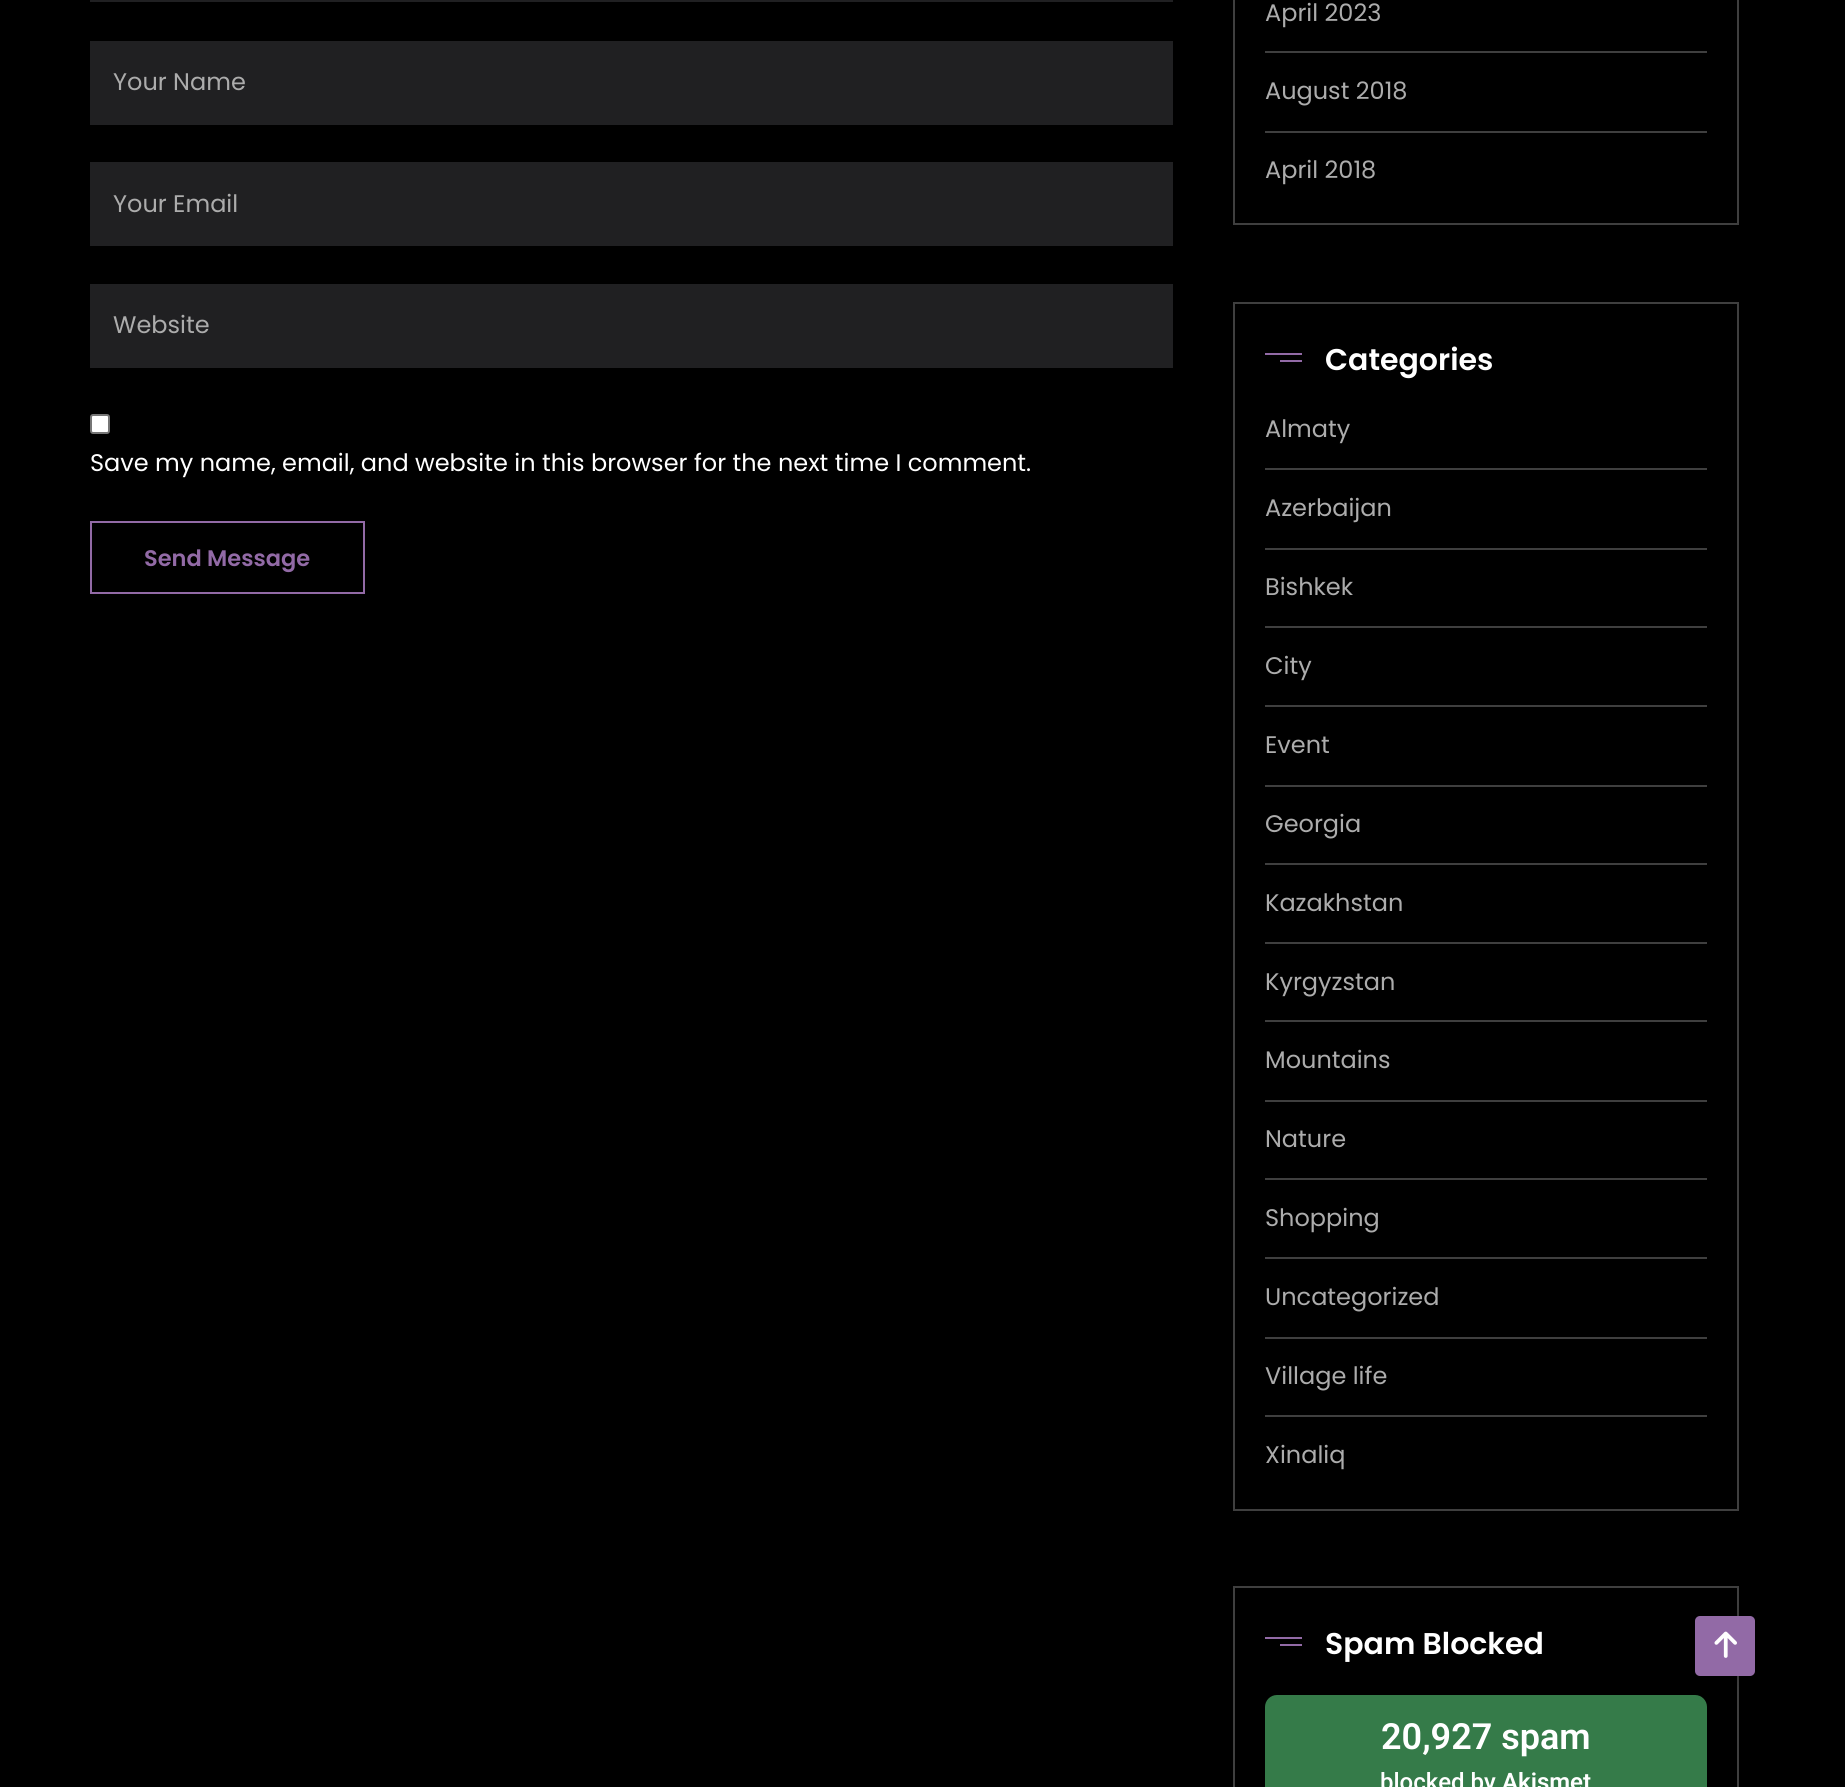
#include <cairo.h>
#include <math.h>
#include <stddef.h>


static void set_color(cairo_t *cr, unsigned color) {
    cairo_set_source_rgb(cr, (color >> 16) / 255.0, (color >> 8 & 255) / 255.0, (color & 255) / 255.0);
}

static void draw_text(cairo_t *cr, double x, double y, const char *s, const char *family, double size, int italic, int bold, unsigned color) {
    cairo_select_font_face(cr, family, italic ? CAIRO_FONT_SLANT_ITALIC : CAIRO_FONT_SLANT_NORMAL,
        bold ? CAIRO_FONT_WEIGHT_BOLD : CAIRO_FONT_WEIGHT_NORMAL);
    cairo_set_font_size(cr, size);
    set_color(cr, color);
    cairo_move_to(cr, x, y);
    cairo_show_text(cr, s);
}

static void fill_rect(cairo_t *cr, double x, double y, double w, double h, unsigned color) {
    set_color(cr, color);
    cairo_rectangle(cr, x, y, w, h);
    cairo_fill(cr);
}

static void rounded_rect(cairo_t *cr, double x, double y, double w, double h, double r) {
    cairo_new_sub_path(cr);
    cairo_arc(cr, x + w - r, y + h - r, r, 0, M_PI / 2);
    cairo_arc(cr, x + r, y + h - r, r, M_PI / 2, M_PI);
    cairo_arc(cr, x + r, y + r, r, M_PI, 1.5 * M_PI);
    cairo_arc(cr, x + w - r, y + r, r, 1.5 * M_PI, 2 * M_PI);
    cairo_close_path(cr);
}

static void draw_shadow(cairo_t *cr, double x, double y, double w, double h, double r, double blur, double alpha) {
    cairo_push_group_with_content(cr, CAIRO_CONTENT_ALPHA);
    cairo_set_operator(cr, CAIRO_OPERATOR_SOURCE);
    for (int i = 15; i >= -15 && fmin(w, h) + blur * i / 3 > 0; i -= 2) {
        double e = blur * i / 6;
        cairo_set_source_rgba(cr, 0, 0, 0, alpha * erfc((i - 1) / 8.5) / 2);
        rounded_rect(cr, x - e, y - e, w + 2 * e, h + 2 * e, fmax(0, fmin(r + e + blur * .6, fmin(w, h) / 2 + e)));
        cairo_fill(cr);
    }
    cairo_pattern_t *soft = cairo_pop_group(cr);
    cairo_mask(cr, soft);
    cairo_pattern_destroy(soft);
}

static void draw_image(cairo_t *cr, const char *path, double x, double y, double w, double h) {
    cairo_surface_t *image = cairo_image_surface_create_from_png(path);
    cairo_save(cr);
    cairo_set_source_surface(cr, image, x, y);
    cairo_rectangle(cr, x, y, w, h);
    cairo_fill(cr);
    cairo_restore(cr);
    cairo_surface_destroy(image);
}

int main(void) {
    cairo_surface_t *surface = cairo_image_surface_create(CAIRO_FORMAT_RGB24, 1845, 1787);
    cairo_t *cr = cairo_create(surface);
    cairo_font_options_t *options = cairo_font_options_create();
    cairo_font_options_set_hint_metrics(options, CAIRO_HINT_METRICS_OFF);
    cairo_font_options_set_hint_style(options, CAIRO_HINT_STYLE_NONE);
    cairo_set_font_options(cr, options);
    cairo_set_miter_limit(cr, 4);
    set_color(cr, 0x000000);
    cairo_paint(cr);
    fill_rect(cr, 90, 0, 1083, 2, 0x202022);
    fill_rect(cr, 90, 41, 1083, 84, 0x202022);
    draw_text(cr, 113, 90, "Your Name", "Poppins", 24, 0, 0, 0xACACAC);
    fill_rect(cr, 90, 162, 1083, 84, 0x202022);
    draw_text(cr, 113, 212, "Your Email", "Poppins", 24, 0, 0, 0xACACAC);
    fill_rect(cr, 90, 284, 1083, 84, 0x202022);
    draw_text(cr, 113, 333, "Website", "Poppins", 24, 0, 0, 0xACACAC);
    set_color(cr, 0xFFFFFF);
    rounded_rect(cr, 91, 415, 18, 18, 2);
    cairo_fill_preserve(cr);
    set_color(cr, 0x767676);
    cairo_stroke(cr);
    draw_text(cr, 90, 471, "Save my name, email, and website in this browser for the next time I comment.", "Poppins", 24, 0, 0, 0xFFFFFF);
    cairo_rectangle(cr, 91, 522, 273, 71);
    set_color(cr, 0x926AA6);
    cairo_stroke(cr);
    draw_text(cr, 144, 566, "Send Message", "Poppins SemiBold", 22.5, 0, 0, 0x926AA6);
    cairo_rectangle(cr, 1234, -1, 504, 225);
    set_color(cr, 0x3F3F3F);
    cairo_stroke(cr);
    fill_rect(cr, 1265, 51, 442, 2, 0x3F3F3F);
    draw_text(cr, 1265, 21, "April 2023", "Poppins", 24, 0, 0, 0xACACAC);
    fill_rect(cr, 1265, 131, 442, 2, 0x3F3F3F);
    draw_text(cr, 1265, 99, "August 2018", "Poppins", 24, 0, 0, 0xACACAC);
    draw_text(cr, 1265, 178, "April 2018", "Poppins", 24, 0, 0, 0xACACAC);
    cairo_rectangle(cr, 1234, 303, 504, 1207);
    set_color(cr, 0x3F3F3F);
    cairo_stroke(cr);
    fill_rect(cr, 1265, 353, 37, 2, 0x926AA6);
    draw_text(cr, 1325, 370, "Categories", "Poppins SemiBold", 30, 0, 0, 0xFFFFFF);
    fill_rect(cr, 1280, 360, 22, 2, 0x926AA6);
    fill_rect(cr, 1265, 468, 442, 2, 0x3F3F3F);
    draw_text(cr, 1265, 437, "Almaty", "Poppins", 24, 0, 0, 0xACACAC);
    fill_rect(cr, 1265, 548, 442, 2, 0x3F3F3F);
    draw_text(cr, 1265, 516, "Azerbaijan", "Poppins", 24, 0, 0, 0xACACAC);
    fill_rect(cr, 1265, 626, 442, 2, 0x3F3F3F);
    draw_text(cr, 1265, 595, "Bishkek", "Poppins", 24, 0, 0, 0xACACAC);
    fill_rect(cr, 1265, 705, 442, 2, 0x3F3F3F);
    draw_text(cr, 1265, 674, "City", "Poppins", 24, 0, 0, 0xACACAC);
    fill_rect(cr, 1265, 785, 442, 2, 0x3F3F3F);
    draw_text(cr, 1265, 753, "Event", "Poppins", 24, 0, 0, 0xACACAC);
    fill_rect(cr, 1265, 863, 442, 2, 0x3F3F3F);
    draw_text(cr, 1265, 832, "Georgia", "Poppins", 24, 0, 0, 0xACACAC);
    fill_rect(cr, 1265, 942, 442, 2, 0x3F3F3F);
    draw_text(cr, 1265, 911, "Kazakhstan", "Poppins", 24, 0, 0, 0xACACAC);
    fill_rect(cr, 1265, 1020, 442, 2, 0x3F3F3F);
    draw_text(cr, 1265, 990, "Kyrgyzstan", "Poppins", 24, 0, 0, 0xACACAC);
    fill_rect(cr, 1265, 1100, 442, 2, 0x3F3F3F);
    draw_text(cr, 1265, 1068, "Mountains", "Poppins", 24, 0, 0, 0xACACAC);
    fill_rect(cr, 1265, 1178, 442, 2, 0x3F3F3F);
    draw_text(cr, 1265, 1147, "Nature", "Poppins", 24, 0, 0, 0xACACAC);
    fill_rect(cr, 1265, 1257, 442, 2, 0x3F3F3F);
    draw_text(cr, 1265, 1226, "Shopping", "Poppins", 24, 0, 0, 0xACACAC);
    fill_rect(cr, 1265, 1337, 442, 2, 0x3F3F3F);
    draw_text(cr, 1265, 1305, "Uncategorized", "Poppins", 24, 0, 0, 0xACACAC);
    fill_rect(cr, 1265, 1415, 442, 2, 0x3F3F3F);
    draw_text(cr, 1265, 1384, "Village life", "Poppins", 24, 0, 0, 0xACACAC);
    draw_text(cr, 1265, 1463, "Xinaliq", "Poppins", 24, 0, 0, 0xACACAC);
    cairo_rectangle(cr, 1234, 1587, 504, 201);
    set_color(cr, 0x3F3F3F);
    cairo_stroke(cr);
    fill_rect(cr, 1265, 1637, 37, 2, 0x926AA6);
    draw_text(cr, 1325, 1654, "Spam Blocked", "Poppins SemiBold", 30, 0, 0, 0xFFFFFF);
    fill_rect(cr, 1280, 1644, 22, 2, 0x926AA6);
    set_color(cr, 0x357B49);
    rounded_rect(cr, 1265, 1695, 442, 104, 12);
    cairo_fill(cr);
    draw_text(cr, 1381, 1749, "20,927 spam", "Roboto SemiBold", 36, 0, 0, 0xFFFFFF);
    draw_text(cr, 1380, 1790, "blocked by", "Roboto Medium", 24, 0, 0, 0xFFFFFF);
    draw_text(cr, 1502, 1790, "Akismet", "Roboto SemiBold", 24, 0, 0, 0xFFFFFF);
    set_color(cr, 0x000000);
    draw_shadow(cr, 1695, 1616, 60, 60, 5, 7.5, 0.2);
    set_color(cr, 0x926AA6);
    rounded_rect(cr, 1695, 1616, 60, 60, 5);
    cairo_fill(cr);
    draw_image(cr, "assets/img1.png", 1714, 1631, 23, 27);
    cairo_surface_write_to_png(surface, "output.png");
    cairo_font_options_destroy(options);
    cairo_destroy(cr);
    cairo_surface_destroy(surface);
    return 0;
}
